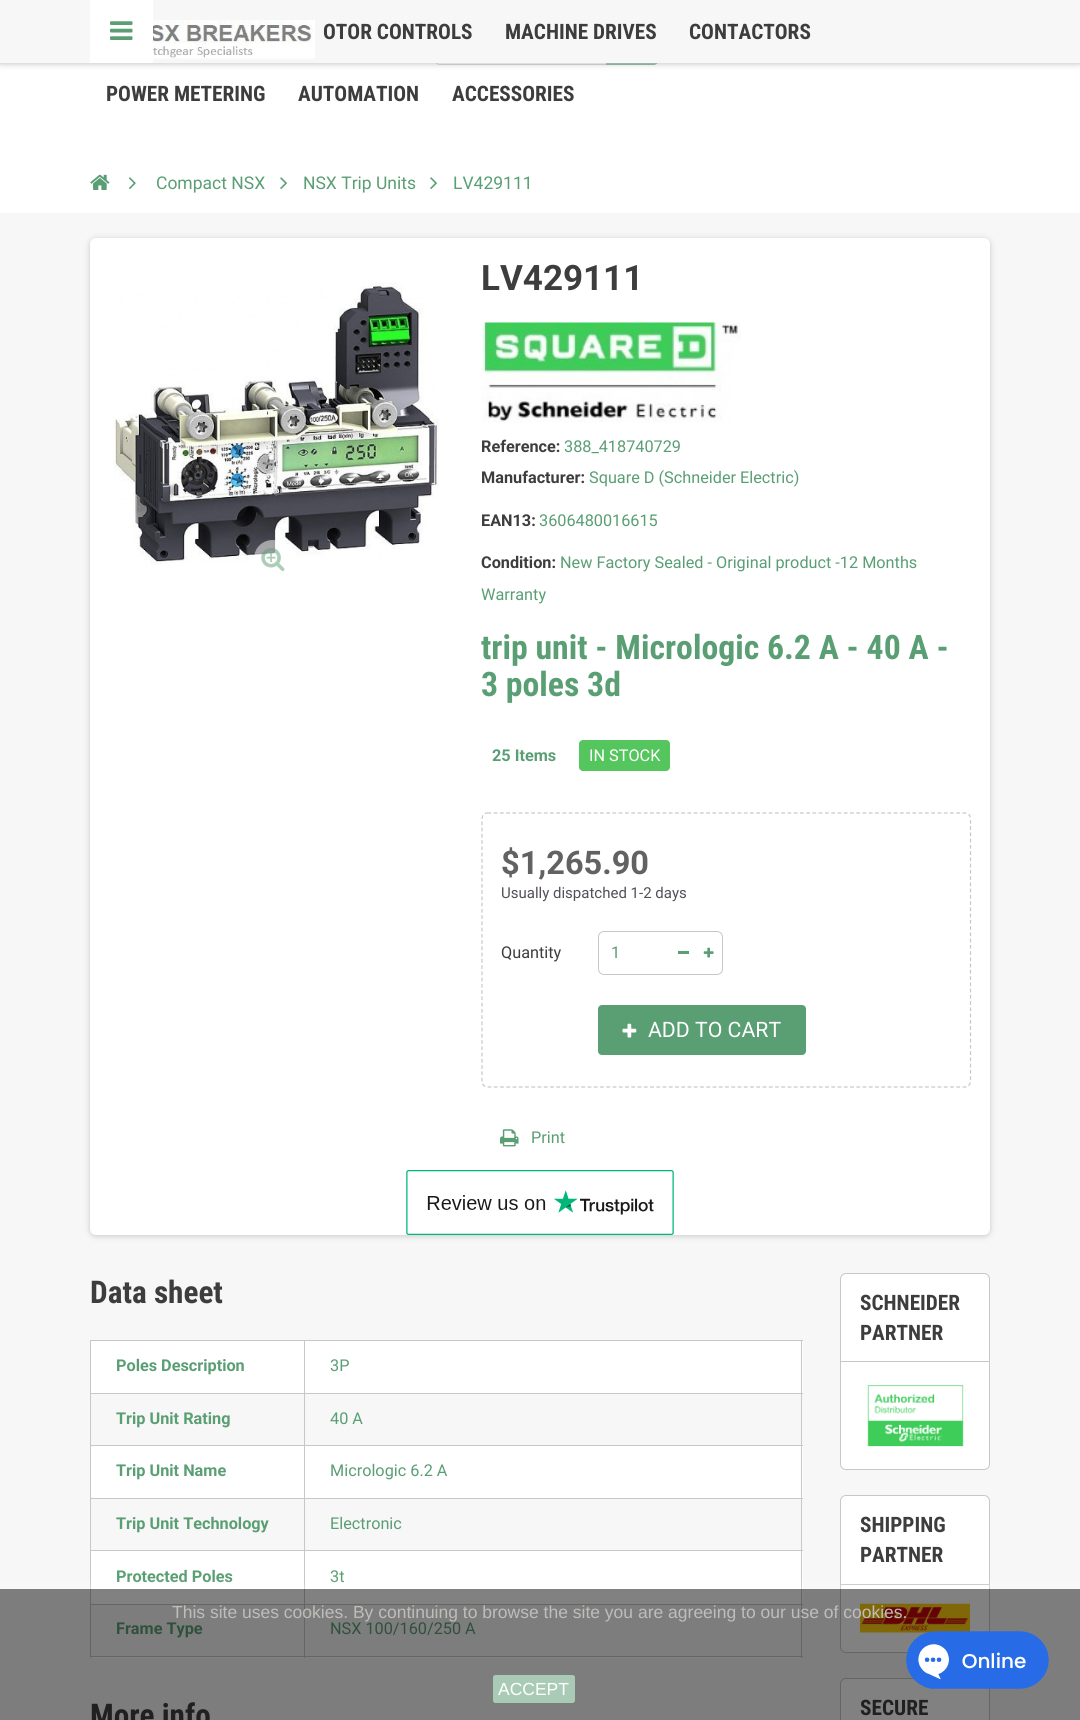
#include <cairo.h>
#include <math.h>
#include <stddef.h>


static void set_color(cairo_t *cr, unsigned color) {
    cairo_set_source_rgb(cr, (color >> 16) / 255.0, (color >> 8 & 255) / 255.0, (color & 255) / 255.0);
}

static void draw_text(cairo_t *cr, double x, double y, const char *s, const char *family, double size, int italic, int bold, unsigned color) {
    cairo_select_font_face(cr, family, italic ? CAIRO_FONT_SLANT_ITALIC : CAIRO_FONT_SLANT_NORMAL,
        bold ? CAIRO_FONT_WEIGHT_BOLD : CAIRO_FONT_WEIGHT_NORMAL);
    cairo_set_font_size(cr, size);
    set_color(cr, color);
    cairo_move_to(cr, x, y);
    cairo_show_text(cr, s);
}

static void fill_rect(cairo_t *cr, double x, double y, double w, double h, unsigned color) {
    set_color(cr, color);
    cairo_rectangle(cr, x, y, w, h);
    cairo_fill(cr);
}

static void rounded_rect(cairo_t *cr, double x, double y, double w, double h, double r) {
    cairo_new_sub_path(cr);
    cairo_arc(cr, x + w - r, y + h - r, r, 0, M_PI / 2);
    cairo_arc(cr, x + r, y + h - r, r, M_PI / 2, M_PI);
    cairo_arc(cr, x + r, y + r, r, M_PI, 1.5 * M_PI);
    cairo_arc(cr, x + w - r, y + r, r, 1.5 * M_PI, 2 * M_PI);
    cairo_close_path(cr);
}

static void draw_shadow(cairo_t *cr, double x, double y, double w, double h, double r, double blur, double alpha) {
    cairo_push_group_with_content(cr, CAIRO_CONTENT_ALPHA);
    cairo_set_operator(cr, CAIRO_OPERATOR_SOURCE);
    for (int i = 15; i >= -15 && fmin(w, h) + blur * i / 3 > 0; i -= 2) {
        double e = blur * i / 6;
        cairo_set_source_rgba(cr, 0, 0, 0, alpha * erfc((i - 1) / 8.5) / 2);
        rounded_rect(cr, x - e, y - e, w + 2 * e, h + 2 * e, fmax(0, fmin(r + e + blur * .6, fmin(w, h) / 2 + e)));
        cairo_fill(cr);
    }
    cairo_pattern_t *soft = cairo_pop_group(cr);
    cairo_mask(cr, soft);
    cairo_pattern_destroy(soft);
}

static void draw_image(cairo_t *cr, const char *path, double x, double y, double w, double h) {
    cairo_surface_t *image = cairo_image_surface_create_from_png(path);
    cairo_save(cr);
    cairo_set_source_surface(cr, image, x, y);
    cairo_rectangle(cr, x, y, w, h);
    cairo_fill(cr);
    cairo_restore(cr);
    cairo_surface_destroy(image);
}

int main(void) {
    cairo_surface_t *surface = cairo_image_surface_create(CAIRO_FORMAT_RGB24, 1080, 1720);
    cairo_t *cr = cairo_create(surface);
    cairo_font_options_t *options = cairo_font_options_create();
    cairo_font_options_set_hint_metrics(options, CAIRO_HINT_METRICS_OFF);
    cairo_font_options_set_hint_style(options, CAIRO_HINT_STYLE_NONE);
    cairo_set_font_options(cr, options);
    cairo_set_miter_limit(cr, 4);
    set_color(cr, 0xFFFFFF);
    cairo_paint(cr);
    rounded_rect(cr, 434.5, 13.5, 224, 51, 5.5);
    set_color(cr, 0xC7C7C7);
    cairo_set_line_width(cr, 1);
    cairo_stroke(cr);
    set_color(cr, 0x5A9E74);
    cairo_new_path(cr);
    cairo_move_to(cr, 606, 13);
    cairo_line_to(cr, 653, 13);
    cairo_curve_to(cr, 656.5, 13, 659, 15.5, 659, 19);
    cairo_line_to(cr, 659, 59);
    cairo_curve_to(cr, 659, 62.5, 656.5, 65, 653, 65);
    cairo_line_to(cr, 606, 65);
    cairo_close_path(cr);
    cairo_fill(cr);
    set_color(cr, 0xC7C7C7);
    draw_shadow(cr, 0, 1, 1080, 63, 0, 3, 1);
    fill_rect(cr, 0, 0, 1080, 63, 0xF7F7F7);
    fill_rect(cr, 90, 0, 63, 63, 0xFFFFFF);
    draw_image(cr, "assets/img1.png", 110, 21, 23, 19);
    draw_image(cr, "assets/img2.png", 153, 20, 162, 39);
    draw_text(cr, 323, 39, "OTOR CONTROLS", "Roboto Condensed", 21.25, 0, 1, 0x3D3D3D);
    draw_text(cr, 505, 39, "MACHINE DRIVES", "Roboto Condensed", 21.25, 0, 1, 0x3D3D3D);
    draw_text(cr, 689, 39, "CONTACTORS", "Roboto Condensed", 21.25, 0, 1, 0x3D3D3D);
    draw_text(cr, 106, 101, "POWER METERING", "Roboto Condensed", 21.25, 0, 1, 0x3D3D3D);
    draw_text(cr, 298, 101, "AUTOMATION", "Roboto Condensed", 21.25, 0, 1, 0x3D3D3D);
    draw_text(cr, 452, 101, "ACCESSORIES", "Roboto Condensed", 21.25, 0, 1, 0x3D3D3D);
    draw_image(cr, "assets/img3.png", 90, 174, 20, 16);
    draw_image(cr, "assets/img4.png", 129, 177, 7, 12);
    draw_text(cr, 156, 189, "Compact NSX", "Roboto", 17.5, 0, 0, 0x5A9E74);
    draw_image(cr, "assets/img5.png", 280, 177, 7, 12);
    draw_text(cr, 303, 189, "NSX Trip Units", "Roboto", 17.5, 0, 0, 0x5A9E74);
    draw_image(cr, "assets/img5.png", 430, 177, 7, 12);
    draw_text(cr, 453, 189, "LV429111", "Roboto", 17.5, 0, 0, 0x5A9E74);
    fill_rect(cr, 0, 213, 1080, 1507, 0xF7F7F7);
    set_color(cr, 0xC7C7C7);
    draw_shadow(cr, 90, 239, 900, 997, 6, 3, 1);
    set_color(cr, 0xFFFFFF);
    rounded_rect(cr, 90, 238, 900, 997, 6);
    cairo_fill(cr);
    draw_image(cr, "assets/img6.png", 113, 282, 326, 283);
    cairo_set_source_rgba(cr, 1, 1, 1, 0.5);
    rounded_rect(cr, 254, 540, 37, 38, 18.5);
    cairo_fill(cr);
    draw_image(cr, "assets/img7.png", 261, 548, 24, 23);
    draw_text(cr, 481, 290, "LV429111", "Roboto", 35, 0, 1, 0x3D3D3D);
    draw_image(cr, "assets/img8.png", 481, 322, 260, 101);
    draw_text(cr, 481, 452, "Reference:", "Roboto", 16.25, 0, 1, 0x3D3D3D);
    draw_text(cr, 564, 452, "388_418740729", "Roboto", 16.25, 0, 0, 0x5A9E74);
    draw_text(cr, 481, 483, "Manufacturer:", "Roboto", 16.25, 0, 1, 0x3D3D3D);
    draw_text(cr, 589, 483, "Square D (Schneider Electric)", "Roboto", 16.25, 0, 0, 0x5A9E74);
    draw_text(cr, 481, 526, "EAN13:", "Roboto", 16.25, 0, 1, 0x3D3D3D);
    draw_text(cr, 539, 526, "3606480016615", "Roboto", 16.25, 0, 0, 0x5A9E74);
    draw_text(cr, 481, 568, "Condition:", "Roboto", 16.25, 0, 1, 0x3D3D3D);
    draw_text(cr, 560, 568, "New Factory Sealed - Original product -12 Months", "Roboto", 16.25, 0, 0, 0x5A9E74);
    draw_text(cr, 481, 600, "Warranty", "Roboto", 16.25, 0, 0, 0x5A9E74);
    draw_text(cr, 481, 659, "trip unit - Micrologic 6.2 A - 40 A -", "Roboto Condensed", 33.75, 0, 1, 0x5A9E74);
    draw_text(cr, 481, 696, "3 poles 3d", "Roboto Condensed", 33.75, 0, 1, 0x5A9E74);
    draw_text(cr, 492, 761, "25 Items", "Roboto", 16.25, 0, 1, 0x5A9E74);
    set_color(cr, 0x55C65E);
    rounded_rect(cr, 579, 740, 91, 31, 4);
    cairo_fill(cr);
    draw_text(cr, 589, 761, "IN STOCK", "Roboto", 16.25, 0, 0, 0xFFFFFF);
    cairo_new_path(cr);
    cairo_move_to(cr, 487.5, 813);
    cairo_line_to(cr, 965, 813);
    cairo_curve_to(cr, 968, 813, 970.5, 815.5, 970.5, 819);
    cairo_line_to(cr, 970.5, 1081);
    cairo_curve_to(cr, 970.5, 1084.5, 968, 1087, 965, 1087);
    cairo_line_to(cr, 487.5, 1087);
    cairo_curve_to(cr, 484.5, 1087, 482, 1084.5, 482, 1081);
    cairo_line_to(cr, 482, 819);
    cairo_curve_to(cr, 482, 815.5, 484.5, 813, 487.5, 813);
    cairo_close_path(cr);
    set_color(cr, 0xC7C7C7);
    cairo_set_line_width(cr, 1.2);
    cairo_set_dash(cr, (double[]){3.75, 2.5}, 2, 0);
    cairo_stroke(cr);
    draw_text(cr, 501, 874, "$1,265.90", "Roboto", 32.5, 0, 1, 0x626262);
    draw_text(cr, 501, 898, "Usually dispatched 1-2 days", "Roboto", 15, 0, 0, 0x554F58);
    draw_text(cr, 501, 958, "Quantity", "Roboto", 16.25, 0, 0, 0x3D3D3D);
    rounded_rect(cr, 598.5, 931.5, 124, 43, 5.5);
    set_color(cr, 0xC7C7C7);
    cairo_set_line_width(cr, 1);
    cairo_set_dash(cr, NULL, 0, 0);
    cairo_stroke(cr);
    draw_text(cr, 611, 958, "1", "Roboto", 16.25, 0, 0, 0x5A9E74);
    fill_rect(cr, 678, 951, 11, 3, 0x5A9E74);
    draw_image(cr, "assets/img9.png", 703, 947, 11, 11);
    rounded_rect(cr, 598, 1005, 208, 50, 4);
    cairo_fill(cr);
    draw_image(cr, "assets/img10.png", 622, 1023, 15, 15);
    draw_text(cr, 648, 1037, "ADD TO CART", "Roboto", 21.25, 0, 0, 0xFFFFFF);
    draw_image(cr, "assets/img11.png", 500, 1129, 19, 18);
    draw_text(cr, 531, 1143, "Print", "Roboto", 16.25, 0, 0, 0x5A9E74);
    draw_image(cr, "assets/img12.png", 406, 1170, 268, 65);
    draw_text(cr, 90, 1303, "Data sheet", "Roboto Condensed", 31.25, 0, 1, 0x3D3D3D);
    fill_rect(cr, 91, 1341, 712, 317, 0xFFFFFF);
    fill_rect(cr, 91, 1394, 712, 51, 0xF7F7F7);
    fill_rect(cr, 91, 1499, 712, 51, 0xF7F7F7);
    fill_rect(cr, 91, 1605, 712, 51, 0xF7F7F7);
    fill_rect(cr, 801, 1340, 1, 318, 0xC7C7C7);
    fill_rect(cr, 90, 1656, 713, 1, 0xC7C7C7);
    fill_rect(cr, 90, 1340, 1, 318, 0xC7C7C7);
    fill_rect(cr, 90, 1340, 713, 1, 0xC7C7C7);
    draw_text(cr, 116, 1371, "Poles Description", "Roboto", 16.25, 0, 1, 0x5A9E74);
    draw_text(cr, 330, 1371, "3P", "Roboto", 16.25, 0, 0, 0x5A9E74);
    fill_rect(cr, 90, 1393, 713, 1, 0xC7C7C7);
    draw_text(cr, 116, 1424, "Trip Unit Rating", "Roboto", 16.25, 0, 1, 0x5A9E74);
    draw_text(cr, 330, 1424, "40 A", "Roboto", 16.25, 0, 0, 0x5A9E74);
    fill_rect(cr, 90, 1445, 713, 1, 0xC7C7C7);
    draw_text(cr, 116, 1476, "Trip Unit Name", "Roboto", 16.25, 0, 1, 0x5A9E74);
    draw_text(cr, 330, 1476, "Micrologic 6.2 A", "Roboto", 16.25, 0, 0, 0x5A9E74);
    fill_rect(cr, 90, 1498, 713, 1, 0xC7C7C7);
    draw_text(cr, 116, 1529, "Trip Unit Technology", "Roboto", 16.25, 0, 1, 0x5A9E74);
    draw_text(cr, 330, 1529, "Electronic", "Roboto", 16.25, 0, 0, 0x5A9E74);
    fill_rect(cr, 90, 1550, 713, 1, 0xC7C7C7);
    draw_text(cr, 116, 1582, "Protected Poles", "Roboto", 16.25, 0, 1, 0x5A9E74);
    draw_text(cr, 330, 1582, "3t", "Roboto", 16.25, 0, 0, 0x5A9E74);
    fill_rect(cr, 90, 1604, 713, 1, 0xC7C7C7);
    fill_rect(cr, 304, 1340, 1, 318, 0xC7C7C7);
    draw_text(cr, 116, 1634, "Frame Type", "Roboto", 16.25, 0, 1, 0x5A9E74);
    draw_text(cr, 330, 1634, "NSX 100/160/250 A", "Roboto", 16.25, 0, 0, 0x5A9E74);
    draw_text(cr, 90, 1726, "More info", "Roboto Condensed", 31.25, 0, 1, 0x3D3D3D);
    set_color(cr, 0xFFFFFF);
    rounded_rect(cr, 840.5, 1273.5, 149, 196, 5.5);
    cairo_fill_preserve(cr);
    set_color(cr, 0xC7C7C7);
    cairo_stroke(cr);
    fill_rect(cr, 841, 1361, 148, 1, 0xC7C7C7);
    draw_text(cr, 860, 1310, "SCHNEIDER", "Roboto Condensed", 21.25, 0, 1, 0x3D3D3D);
    draw_text(cr, 860, 1340, "PARTNER", "Roboto Condensed", 21.25, 0, 1, 0x3D3D3D);
    draw_image(cr, "assets/img13.png", 867, 1385, 97, 62);
    set_color(cr, 0xFFFFFF);
    rounded_rect(cr, 840.5, 1495.5, 149, 157, 5.5);
    cairo_fill_preserve(cr);
    set_color(cr, 0xC7C7C7);
    cairo_stroke(cr);
    fill_rect(cr, 841, 1584, 148, 1, 0xC7C7C7);
    draw_text(cr, 860, 1532, "SHIPPING", "Roboto Condensed", 21.25, 0, 1, 0x3D3D3D);
    draw_text(cr, 860, 1562, "PARTNER", "Roboto Condensed", 21.25, 0, 1, 0x3D3D3D);
    draw_image(cr, "assets/img14.png", 860, 1603, 110, 30);
    set_color(cr, 0xFFFFFF);
    rounded_rect(cr, 840.5, 1678.5, 149, 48, 5.5);
    cairo_fill_preserve(cr);
    set_color(cr, 0xC7C7C7);
    cairo_stroke(cr);
    draw_text(cr, 860, 1715, "SECURE", "Roboto Condensed", 21.25, 0, 1, 0x3D3D3D);
    cairo_save(cr);
    cairo_rectangle(cr, 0, 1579, 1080, 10);
    cairo_clip(cr);
    set_color(cr, 0xFFFFFF);
    draw_shadow(cr, 0, 1589, 1080, 131, 0, 6, 0.5);
    cairo_restore(cr);
    cairo_set_source_rgba(cr, 0.02, 0.02, 0.02, 0.5);
    cairo_rectangle(cr, 0, 1589, 1080, 131);
    cairo_fill(cr);
    draw_text(cr, 172, 1618, "This site uses cookies. By continuing to browse the site you are agreeing to our use of cookies.", "Liberation Sans", 17.5, 0, 0, 0xBEBDBA);
    set_color(cr, 0xA9CBB6);
    rounded_rect(cr, 493, 1675, 82, 28, 2.5);
    cairo_fill(cr);
    draw_text(cr, 498, 1695, "ACCEPT", "Liberation Sans", 17.5, 0, 0, 0xFFFFFF);
    draw_image(cr, "assets/img15.png", 906, 1631, 143, 58);
    cairo_surface_write_to_png(surface, "output.png");
    cairo_font_options_destroy(options);
    cairo_destroy(cr);
    cairo_surface_destroy(surface);
    return 0;
}
